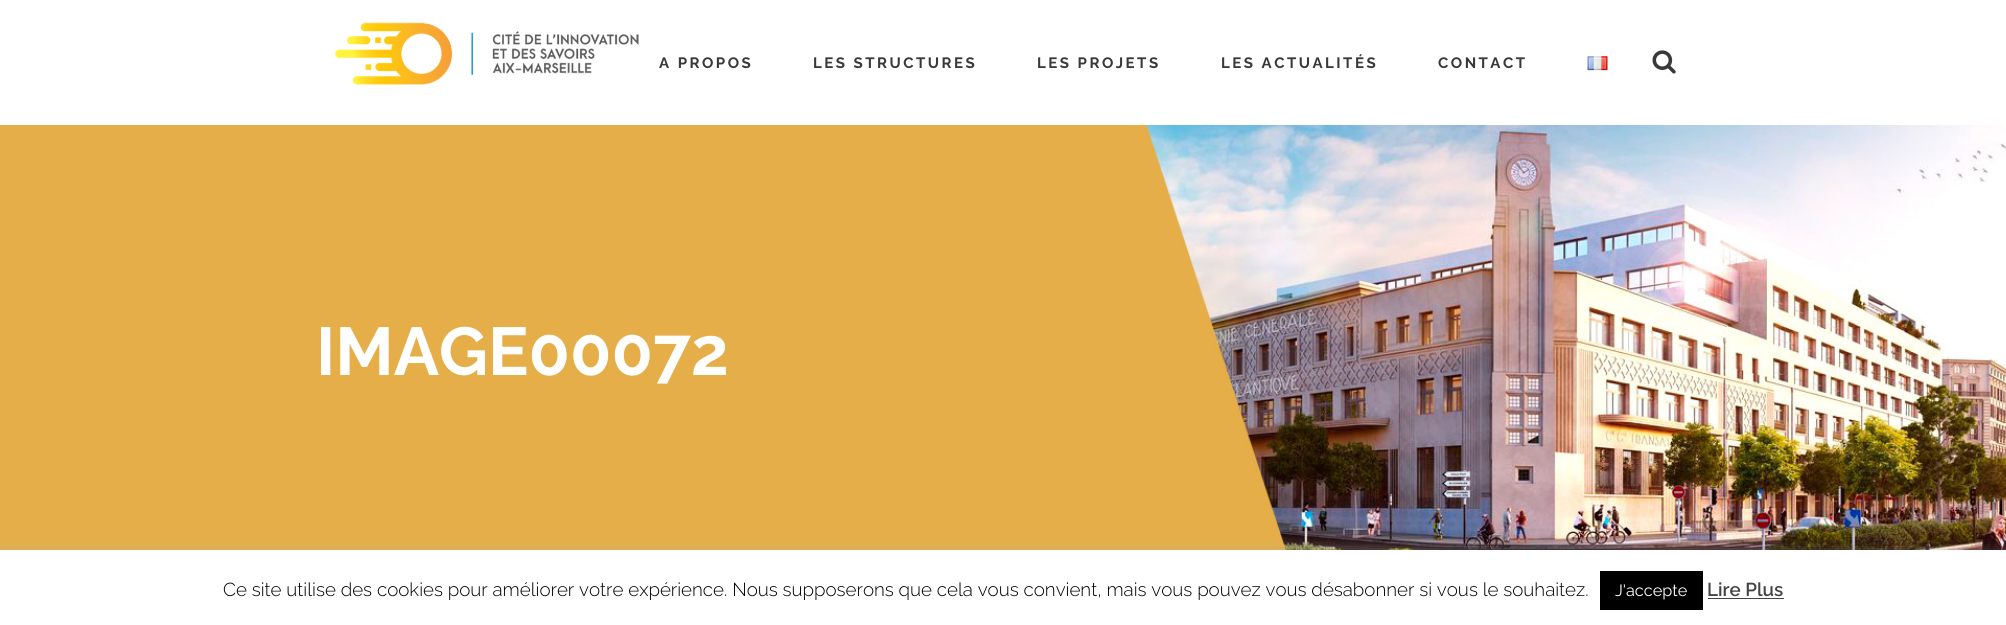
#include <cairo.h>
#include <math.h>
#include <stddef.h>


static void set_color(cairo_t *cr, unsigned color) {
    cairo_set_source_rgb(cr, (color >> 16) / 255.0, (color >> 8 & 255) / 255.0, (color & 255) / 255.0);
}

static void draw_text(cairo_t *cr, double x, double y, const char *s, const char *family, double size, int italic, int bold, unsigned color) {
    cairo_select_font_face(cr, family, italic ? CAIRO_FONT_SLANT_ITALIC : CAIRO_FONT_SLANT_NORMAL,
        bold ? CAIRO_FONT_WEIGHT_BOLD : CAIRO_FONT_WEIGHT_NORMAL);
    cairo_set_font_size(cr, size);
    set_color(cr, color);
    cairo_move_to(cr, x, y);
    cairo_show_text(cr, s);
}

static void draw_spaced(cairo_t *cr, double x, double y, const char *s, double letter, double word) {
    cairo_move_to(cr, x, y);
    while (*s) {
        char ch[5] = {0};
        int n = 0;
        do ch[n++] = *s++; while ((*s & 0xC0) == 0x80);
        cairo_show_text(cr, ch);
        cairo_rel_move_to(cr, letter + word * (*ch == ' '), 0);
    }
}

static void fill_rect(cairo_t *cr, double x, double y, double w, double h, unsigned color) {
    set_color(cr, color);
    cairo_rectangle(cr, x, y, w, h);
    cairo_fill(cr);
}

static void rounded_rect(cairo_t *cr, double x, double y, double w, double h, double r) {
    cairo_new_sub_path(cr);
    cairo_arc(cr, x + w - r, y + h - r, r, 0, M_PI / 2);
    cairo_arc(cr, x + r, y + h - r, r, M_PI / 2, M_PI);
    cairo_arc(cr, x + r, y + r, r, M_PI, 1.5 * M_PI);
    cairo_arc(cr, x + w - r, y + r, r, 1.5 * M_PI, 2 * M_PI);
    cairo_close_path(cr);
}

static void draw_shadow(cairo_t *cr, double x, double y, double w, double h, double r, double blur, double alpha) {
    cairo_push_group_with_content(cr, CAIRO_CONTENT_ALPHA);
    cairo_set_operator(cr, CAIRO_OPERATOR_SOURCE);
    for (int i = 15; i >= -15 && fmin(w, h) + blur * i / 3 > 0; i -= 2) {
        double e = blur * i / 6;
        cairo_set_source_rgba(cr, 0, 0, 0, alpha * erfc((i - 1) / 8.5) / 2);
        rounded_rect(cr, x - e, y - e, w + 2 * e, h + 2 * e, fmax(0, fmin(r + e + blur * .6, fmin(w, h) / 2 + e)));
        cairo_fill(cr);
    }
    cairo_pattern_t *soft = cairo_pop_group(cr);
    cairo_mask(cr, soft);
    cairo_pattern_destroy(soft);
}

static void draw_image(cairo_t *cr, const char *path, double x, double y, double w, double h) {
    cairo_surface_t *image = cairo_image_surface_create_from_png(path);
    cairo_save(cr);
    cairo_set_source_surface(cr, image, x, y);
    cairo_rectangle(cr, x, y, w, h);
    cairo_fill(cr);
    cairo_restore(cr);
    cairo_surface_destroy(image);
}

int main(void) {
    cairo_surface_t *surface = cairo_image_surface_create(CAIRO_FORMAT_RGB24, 2006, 625);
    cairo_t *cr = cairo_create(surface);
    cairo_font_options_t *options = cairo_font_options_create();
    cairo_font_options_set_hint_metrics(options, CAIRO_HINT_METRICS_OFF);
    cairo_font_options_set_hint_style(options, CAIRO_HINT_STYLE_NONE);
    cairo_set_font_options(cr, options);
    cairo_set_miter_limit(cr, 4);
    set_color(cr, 0xFFFFFF);
    cairo_paint(cr);
    draw_image(cr, "assets/img1.png", 334, 22, 305, 63);
    cairo_select_font_face(cr, "Raleway", CAIRO_FONT_SLANT_NORMAL, CAIRO_FONT_WEIGHT_BOLD);
    cairo_set_font_size(cr, 15);
    set_color(cr, 0x393939);
    draw_spaced(cr, 659, 68, "A PROPOS", 2.5, 0);
    draw_spaced(cr, 813, 68, "LES STRUCTURES", 2.5, 0);
    draw_spaced(cr, 1037, 68, "LES PROJETS", 2.5, 0);
    draw_spaced(cr, 1221, 68, "LES ACTUALITÉS", 2.5, 0);
    draw_spaced(cr, 1438, 68, "CONTACT", 2.5, 0);
    draw_image(cr, "assets/img2.png", 1587, 56, 21, 15);
    draw_image(cr, "assets/img3.png", 1652, 50, 24, 24);
    draw_image(cr, "assets/img4.png", 0, 125, 2006, 425);
    draw_text(cr, 316, 375, "IMAGE00072", "Raleway", 67.5, 0, 1, 0xFFFFFF);
    set_color(cr, 0xACABAB);
    draw_shadow(cr, 0, 549, 2006, 75, 0, 6, 0.3);
    fill_rect(cr, 0, 550, 2006, 75, 0xFFFFFF);
    draw_text(cr, 223, 596, "Ce site utilise des cookies pour améliorer votre expérience. Nous supposerons que cela vous convient, mais vous pouvez vous désabonner si vous le souhaitez.", "Raleway Light", 18.75, 0, 0, 0x000000);
    fill_rect(cr, 1600, 571, 103, 39, 0x000000);
    draw_text(cr, 1615, 596, "J'accepte", "Raleway", 16.25, 0, 0, 0xFFFFFF);
    draw_text(cr, 1707, 596, "Lire Plus", "Raleway SemiBold", 18.75, 0, 0, 0x444444);
    fill_rect(cr, 1708, 598, 76, 1, 0x444444);
    cairo_surface_write_to_png(surface, "output.png");
    cairo_font_options_destroy(options);
    cairo_destroy(cr);
    cairo_surface_destroy(surface);
    return 0;
}
